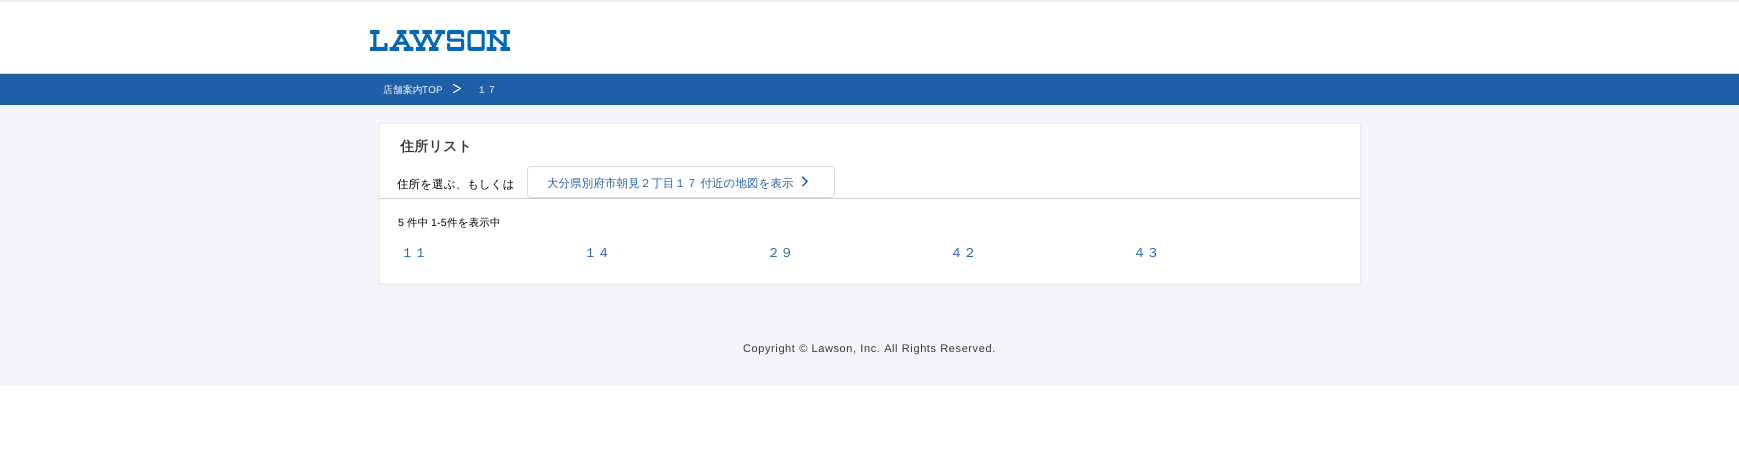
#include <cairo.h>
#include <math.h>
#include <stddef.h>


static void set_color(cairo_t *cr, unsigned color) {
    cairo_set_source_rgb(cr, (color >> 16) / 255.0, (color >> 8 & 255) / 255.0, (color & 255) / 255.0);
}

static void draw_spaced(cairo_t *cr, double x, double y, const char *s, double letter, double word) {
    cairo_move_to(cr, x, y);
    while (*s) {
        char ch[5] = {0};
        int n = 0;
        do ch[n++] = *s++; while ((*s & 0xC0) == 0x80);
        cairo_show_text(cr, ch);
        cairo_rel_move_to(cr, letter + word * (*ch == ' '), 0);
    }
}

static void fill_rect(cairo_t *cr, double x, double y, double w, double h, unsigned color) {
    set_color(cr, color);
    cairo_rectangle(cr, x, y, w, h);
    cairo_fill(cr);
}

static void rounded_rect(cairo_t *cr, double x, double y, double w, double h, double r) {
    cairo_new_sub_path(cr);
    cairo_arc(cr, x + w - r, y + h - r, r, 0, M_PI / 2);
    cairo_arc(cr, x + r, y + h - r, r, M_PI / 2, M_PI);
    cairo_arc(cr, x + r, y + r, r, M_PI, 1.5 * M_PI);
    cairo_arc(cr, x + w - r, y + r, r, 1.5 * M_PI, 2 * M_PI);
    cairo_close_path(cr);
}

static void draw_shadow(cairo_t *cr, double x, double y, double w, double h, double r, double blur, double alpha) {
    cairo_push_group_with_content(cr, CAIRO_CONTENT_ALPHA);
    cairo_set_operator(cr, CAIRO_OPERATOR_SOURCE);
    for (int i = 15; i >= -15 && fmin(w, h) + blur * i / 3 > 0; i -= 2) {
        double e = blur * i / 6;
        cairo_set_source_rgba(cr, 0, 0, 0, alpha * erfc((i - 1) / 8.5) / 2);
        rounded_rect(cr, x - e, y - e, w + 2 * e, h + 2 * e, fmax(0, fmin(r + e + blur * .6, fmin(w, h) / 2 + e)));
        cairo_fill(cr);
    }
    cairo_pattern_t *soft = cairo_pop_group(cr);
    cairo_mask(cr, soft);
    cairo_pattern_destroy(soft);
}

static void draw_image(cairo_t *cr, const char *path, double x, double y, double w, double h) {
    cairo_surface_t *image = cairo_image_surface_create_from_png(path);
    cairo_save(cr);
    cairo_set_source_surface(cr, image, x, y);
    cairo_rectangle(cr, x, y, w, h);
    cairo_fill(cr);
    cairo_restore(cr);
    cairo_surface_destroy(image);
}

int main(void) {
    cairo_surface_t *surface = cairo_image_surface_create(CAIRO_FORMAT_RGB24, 1739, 459);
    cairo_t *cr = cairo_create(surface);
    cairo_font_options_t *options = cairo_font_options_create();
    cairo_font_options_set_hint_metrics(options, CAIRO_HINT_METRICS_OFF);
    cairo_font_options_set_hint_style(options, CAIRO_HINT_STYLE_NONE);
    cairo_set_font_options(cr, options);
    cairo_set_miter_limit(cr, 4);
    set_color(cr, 0xFFFFFF);
    cairo_paint(cr);
    fill_rect(cr, 0, 105, 1739, 281, 0xF3F5F8);
    fill_rect(cr, 0, 0, 1739, 2, 0xEEEEEE);
    fill_rect(cr, 0, 73, 1739, 1, 0xD9D9D9);
    draw_image(cr, "assets/img1.png", 370, 30, 140, 21);
    fill_rect(cr, 0, 74, 1739, 31, 0x1F5FA8);
    cairo_select_font_face(cr, "WenQuanYi Zen Hei Medium", CAIRO_FONT_SLANT_NORMAL, CAIRO_FONT_WEIGHT_NORMAL);
    cairo_set_font_size(cr, 9.75);
    set_color(cr, 0xFFFFFF);
    draw_spaced(cr, 383, 93, "店舗案内", 0.2, 0);
    cairo_select_font_face(cr, "Liberation Sans", CAIRO_FONT_SLANT_NORMAL, CAIRO_FONT_WEIGHT_NORMAL);
    draw_spaced(cr, 422, 93, "TOP", 0.2, 0);
    draw_image(cr, "assets/img2.png", 453, 84, 8, 9);
    cairo_select_font_face(cr, "WenQuanYi Zen Hei Medium", CAIRO_FONT_SLANT_NORMAL, CAIRO_FONT_WEIGHT_NORMAL);
    draw_spaced(cr, 477, 93, "１７", 0.2, 0);
    set_color(cr, 0xEAEAEA);
    draw_shadow(cr, 379, 124, 982, 161, 1, 1, 1);
    set_color(cr, 0xFFFFFF);
    rounded_rect(cr, 379.5, 123.5, 981, 160, 0.5);
    cairo_fill_preserve(cr);
    set_color(cr, 0xEAEAEA);
    cairo_set_line_width(cr, 1);
    cairo_stroke(cr);
    fill_rect(cr, 380, 198, 980, 1, 0xCDCDCD);
    cairo_select_font_face(cr, "WenQuanYi Zen Hei", CAIRO_FONT_SLANT_NORMAL, CAIRO_FONT_WEIGHT_BOLD);
    cairo_set_font_size(cr, 14);
    set_color(cr, 0x363636);
    draw_spaced(cr, 400, 151, "住所リスト", 0.2, 0);
    cairo_select_font_face(cr, "WenQuanYi Zen Hei Medium", CAIRO_FONT_SLANT_NORMAL, CAIRO_FONT_WEIGHT_NORMAL);
    cairo_set_font_size(cr, 11.4);
    set_color(cr, 0x000000);
    draw_spaced(cr, 397, 188, "住所を選ぶ、もしくは", 0.2, 0);
    rounded_rect(cr, 527.5, 166.5, 307, 31, 3.5);
    set_color(cr, 0xDCDCDC);
    cairo_stroke(cr);
    set_color(cr, 0x1F5FA8);
    draw_spaced(cr, 547, 187, "大分県別府市朝見２丁目１７ 付近の地図を表示", 0.2, -1);
    draw_image(cr, "assets/img3.png", 802, 176, 6, 11);
    cairo_select_font_face(cr, "Liberation Sans", CAIRO_FONT_SLANT_NORMAL, CAIRO_FONT_WEIGHT_NORMAL);
    cairo_set_font_size(cr, 10.5);
    set_color(cr, 0x000000);
    draw_spaced(cr, 398, 226, "5", 0.2, 0);
    cairo_select_font_face(cr, "WenQuanYi Zen Hei Medium", CAIRO_FONT_SLANT_NORMAL, CAIRO_FONT_WEIGHT_NORMAL);
    draw_spaced(cr, 407, 226, "件中", 0.2, 0);
    cairo_select_font_face(cr, "Liberation Sans", CAIRO_FONT_SLANT_NORMAL, CAIRO_FONT_WEIGHT_NORMAL);
    draw_spaced(cr, 431, 226, "1-5", 0.2, 0);
    cairo_select_font_face(cr, "WenQuanYi Zen Hei Medium", CAIRO_FONT_SLANT_NORMAL, CAIRO_FONT_WEIGHT_NORMAL);
    draw_spaced(cr, 447, 226, "件を表示中", 0.2, 0);
    cairo_set_font_size(cr, 13);
    set_color(cr, 0x1F5FA8);
    draw_spaced(cr, 401, 257, "１１", 0.2, 0);
    draw_spaced(cr, 584, 257, "１４", 0.2, 0);
    draw_spaced(cr, 767, 257, "２９", 0.2, 0);
    draw_spaced(cr, 950, 257, "４２", 0.2, 0);
    draw_spaced(cr, 1133, 257, "４３", 0.2, 0);
    cairo_select_font_face(cr, "Liberation Sans", CAIRO_FONT_SLANT_NORMAL, CAIRO_FONT_WEIGHT_NORMAL);
    cairo_set_font_size(cr, 11);
    set_color(cr, 0x363636);
    draw_spaced(cr, 743, 352, "Copyright © Lawson, Inc. All Rights Reserved.", 0.6, 0);
    cairo_surface_write_to_png(surface, "output.png");
    cairo_font_options_destroy(options);
    cairo_destroy(cr);
    cairo_surface_destroy(surface);
    return 0;
}
